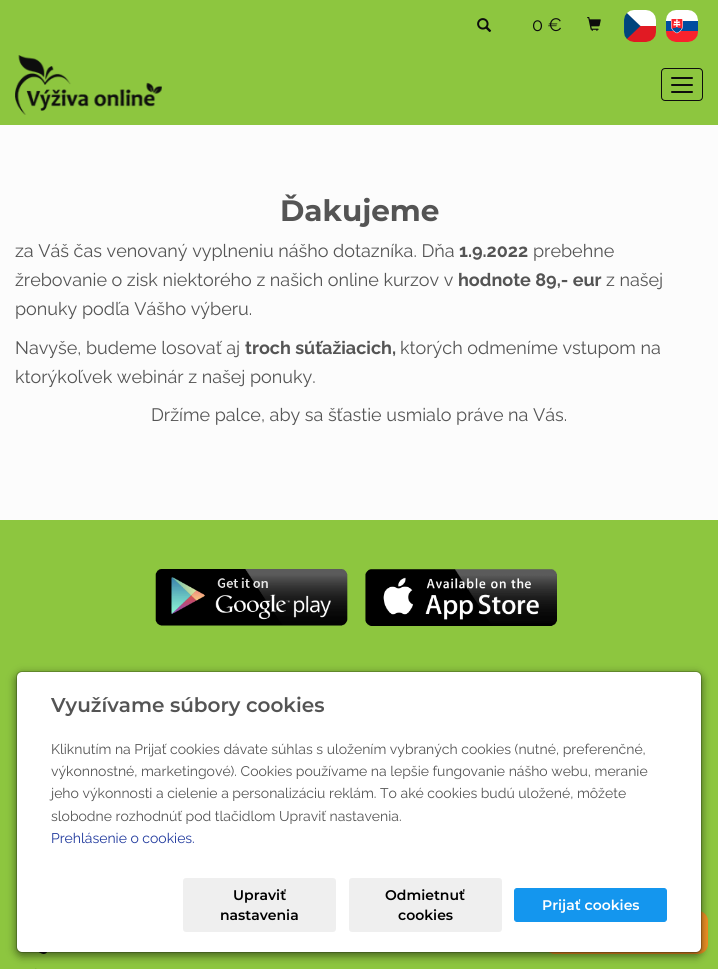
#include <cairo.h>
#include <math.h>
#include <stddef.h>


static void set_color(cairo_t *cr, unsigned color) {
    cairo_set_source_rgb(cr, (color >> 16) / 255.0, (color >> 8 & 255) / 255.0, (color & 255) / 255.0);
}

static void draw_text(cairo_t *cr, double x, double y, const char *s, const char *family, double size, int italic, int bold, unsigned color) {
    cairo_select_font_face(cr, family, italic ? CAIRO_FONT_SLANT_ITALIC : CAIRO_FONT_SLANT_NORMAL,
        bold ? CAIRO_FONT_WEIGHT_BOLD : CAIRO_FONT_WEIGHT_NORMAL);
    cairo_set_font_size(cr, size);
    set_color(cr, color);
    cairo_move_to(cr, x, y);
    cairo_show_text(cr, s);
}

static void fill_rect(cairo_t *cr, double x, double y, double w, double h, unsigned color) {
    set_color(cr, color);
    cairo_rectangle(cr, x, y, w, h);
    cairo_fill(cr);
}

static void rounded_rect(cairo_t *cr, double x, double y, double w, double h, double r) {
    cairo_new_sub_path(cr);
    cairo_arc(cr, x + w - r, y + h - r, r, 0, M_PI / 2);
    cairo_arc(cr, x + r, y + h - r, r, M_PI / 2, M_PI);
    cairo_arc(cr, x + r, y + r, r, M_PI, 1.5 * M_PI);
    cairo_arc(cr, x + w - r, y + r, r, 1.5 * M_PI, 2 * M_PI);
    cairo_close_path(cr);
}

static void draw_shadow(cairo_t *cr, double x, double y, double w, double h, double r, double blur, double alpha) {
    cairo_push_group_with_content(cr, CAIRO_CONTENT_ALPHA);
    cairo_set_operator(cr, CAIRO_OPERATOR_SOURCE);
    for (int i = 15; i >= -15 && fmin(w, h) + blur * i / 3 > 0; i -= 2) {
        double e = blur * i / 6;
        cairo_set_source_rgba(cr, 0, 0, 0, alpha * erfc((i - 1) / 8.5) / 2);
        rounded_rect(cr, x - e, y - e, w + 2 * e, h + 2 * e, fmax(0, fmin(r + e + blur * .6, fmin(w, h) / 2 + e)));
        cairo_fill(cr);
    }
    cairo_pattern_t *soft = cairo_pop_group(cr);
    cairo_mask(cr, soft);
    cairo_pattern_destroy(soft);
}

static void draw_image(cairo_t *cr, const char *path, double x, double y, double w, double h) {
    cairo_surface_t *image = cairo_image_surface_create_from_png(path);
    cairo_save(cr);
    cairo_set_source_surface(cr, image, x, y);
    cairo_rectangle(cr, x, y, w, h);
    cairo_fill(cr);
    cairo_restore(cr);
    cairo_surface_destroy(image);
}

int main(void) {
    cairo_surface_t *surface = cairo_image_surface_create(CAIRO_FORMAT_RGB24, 718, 969);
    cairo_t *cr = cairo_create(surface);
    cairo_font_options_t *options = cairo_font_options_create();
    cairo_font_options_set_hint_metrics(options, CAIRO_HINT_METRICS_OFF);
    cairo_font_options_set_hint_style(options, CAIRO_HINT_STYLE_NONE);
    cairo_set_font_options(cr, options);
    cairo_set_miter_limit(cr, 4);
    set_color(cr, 0xFCFCFC);
    cairo_paint(cr);
    fill_rect(cr, 0, 0, 718, 125, 0x8DC63F);
    draw_image(cr, "assets/img1.png", 477, 18, 15, 14);
    draw_text(cr, 532, 31, "0 €", "Raleway", 18, 0, 0, 0x0D0D0D);
    draw_image(cr, "assets/img2.png", 587, 17, 14, 14);
    draw_image(cr, "assets/img3.png", 15, 55, 147, 60);
    rounded_rect(cr, 661.5, 68.5, 41, 32, 3.5);
    cairo_set_line_width(cr, 1);
    cairo_stroke(cr);
    rounded_rect(cr, 671, 77, 22, 2, 1);
    cairo_fill(cr);
    rounded_rect(cr, 671, 84, 22, 2, 1);
    cairo_fill(cr);
    rounded_rect(cr, 671, 91, 22, 2, 1);
    cairo_fill(cr);
    draw_image(cr, "assets/img4.png", 624, 10, 32, 32);
    draw_image(cr, "assets/img5.png", 666, 10, 32, 32);
    draw_text(cr, 280, 221, "Ďakujeme", "Montserrat", 29.5, 0, 1, 0x545454);
    draw_text(cr, 15, 257, "za Váš čas venovaný vyplneniu nášho dotazníka. Dňa", "Raleway", 18, 0, 0, 0x545454);
    draw_text(cr, 459, 257, "1.9.2022", "Raleway", 18, 0, 1, 0x545454);
    draw_text(cr, 533, 257, "prebehne", "Raleway", 18, 0, 0, 0x545454);
    draw_text(cr, 15, 286, "žrebovanie o zisk niektorého z našich online kurzov v", "Raleway", 18, 0, 0, 0x545454);
    draw_text(cr, 458, 286, "hodnote 89,- eur", "Raleway", 18, 0, 1, 0x545454);
    draw_text(cr, 606, 286, "z našej", "Raleway", 18, 0, 0, 0x545454);
    draw_text(cr, 15, 315, "ponuky podľa Vášho výberu.", "Raleway", 18, 0, 0, 0x545454);
    draw_text(cr, 15, 354, "Navyše, budeme losovať aj", "Raleway", 18, 0, 0, 0x545454);
    draw_text(cr, 245, 354, "troch súťažiacich,", "Raleway", 18, 0, 1, 0x545454);
    draw_text(cr, 400, 354, "ktorých odmeníme vstupom na", "Raleway", 18, 0, 0, 0x545454);
    draw_text(cr, 15, 383, "ktorýkoľvek webinár z našej ponuky.", "Raleway", 18, 0, 0, 0x545454);
    draw_text(cr, 151, 421, "Držíme palce, aby sa šťastie usmialo práve na Vás.", "Raleway", 18, 0, 0, 0x545454);
    fill_rect(cr, 0, 520, 718, 449, 0x8DC63F);
    draw_image(cr, "assets/img6.png", 155, 569, 193, 57);
    draw_image(cr, "assets/img7.png", 365, 569, 192, 57);
    draw_image(cr, "assets/img8.png", 38, 952, 9, 2);
    draw_image(cr, "assets/img9.png", 35, 968, 2, 1);
    set_color(cr, 0xF39527);
    rounded_rect(cr, 545.5, 911.5, 162, 42, 9.5);
    cairo_fill_preserve(cr);
    set_color(cr, 0xF78F1E);
    cairo_stroke(cr);
    set_color(cr, 0x000000);
    draw_shadow(cr, 16, 674, 686, 282, 6, 4.5, 0.5);
    set_color(cr, 0xFFFFFF);
    rounded_rect(cr, 17, 672, 684, 280, 5);
    cairo_fill(cr);
    rounded_rect(cr, 16.5, 671.5, 685, 281, 5.5);
    cairo_set_source_rgba(cr, 0, 0, 0, 0.2);
    cairo_stroke(cr);
    draw_text(cr, 51, 712, "Využívame súbory cookies", "Montserrat SemiBold", 20, 0, 0, 0x545454);
    draw_text(cr, 51, 754, "Kliknutím na Prijať cookies dávate súhlas s uložením vybraných cookies (nutné, preferenčné,", "Raleway", 14, 0, 0, 0x545454);
    draw_text(cr, 51, 776, "výkonnostné, marketingové). Cookies používame na lepšie fungovanie nášho webu, meranie", "Raleway", 14, 0, 0, 0x545454);
    draw_text(cr, 51, 798, "jeho výkonnosti a cielenie a personalizáciu reklám. To aké cookies budú uložené, môžete", "Raleway", 14, 0, 0, 0x545454);
    draw_text(cr, 51, 821, "slobodne rozhodnúť pod tlačidlom Upraviť nastavenia.", "Raleway", 14, 0, 0, 0x545454);
    draw_text(cr, 51, 843, "Prehlásenie o cookies.", "Raleway", 14, 0, 0, 0x20399D);
    set_color(cr, 0xEFEFEF);
    rounded_rect(cr, 183, 878, 153, 54, 3);
    cairo_fill(cr);
    draw_text(cr, 233, 900, "Upraviť", "Montserrat SemiBold", 14, 0, 0, 0x000000);
    draw_text(cr, 220, 920, "nastavenia", "Montserrat SemiBold", 14, 0, 0, 0x000000);
    set_color(cr, 0xEFEFEF);
    rounded_rect(cr, 349, 878, 153, 54, 3);
    cairo_fill(cr);
    draw_text(cr, 385, 900, "Odmietnuť", "Montserrat SemiBold", 14, 0, 0, 0x000000);
    draw_text(cr, 398, 920, "cookies", "Montserrat SemiBold", 14, 0, 0, 0x000000);
    set_color(cr, 0x1496EE);
    rounded_rect(cr, 514.5, 888.5, 152, 33, 2.5);
    cairo_fill_preserve(cr);
    cairo_stroke(cr);
    draw_text(cr, 542, 910, "Prijať cookies", "Montserrat SemiBold", 14, 0, 0, 0xFFFFFF);
    cairo_surface_write_to_png(surface, "output.png");
    cairo_font_options_destroy(options);
    cairo_destroy(cr);
    cairo_surface_destroy(surface);
    return 0;
}
